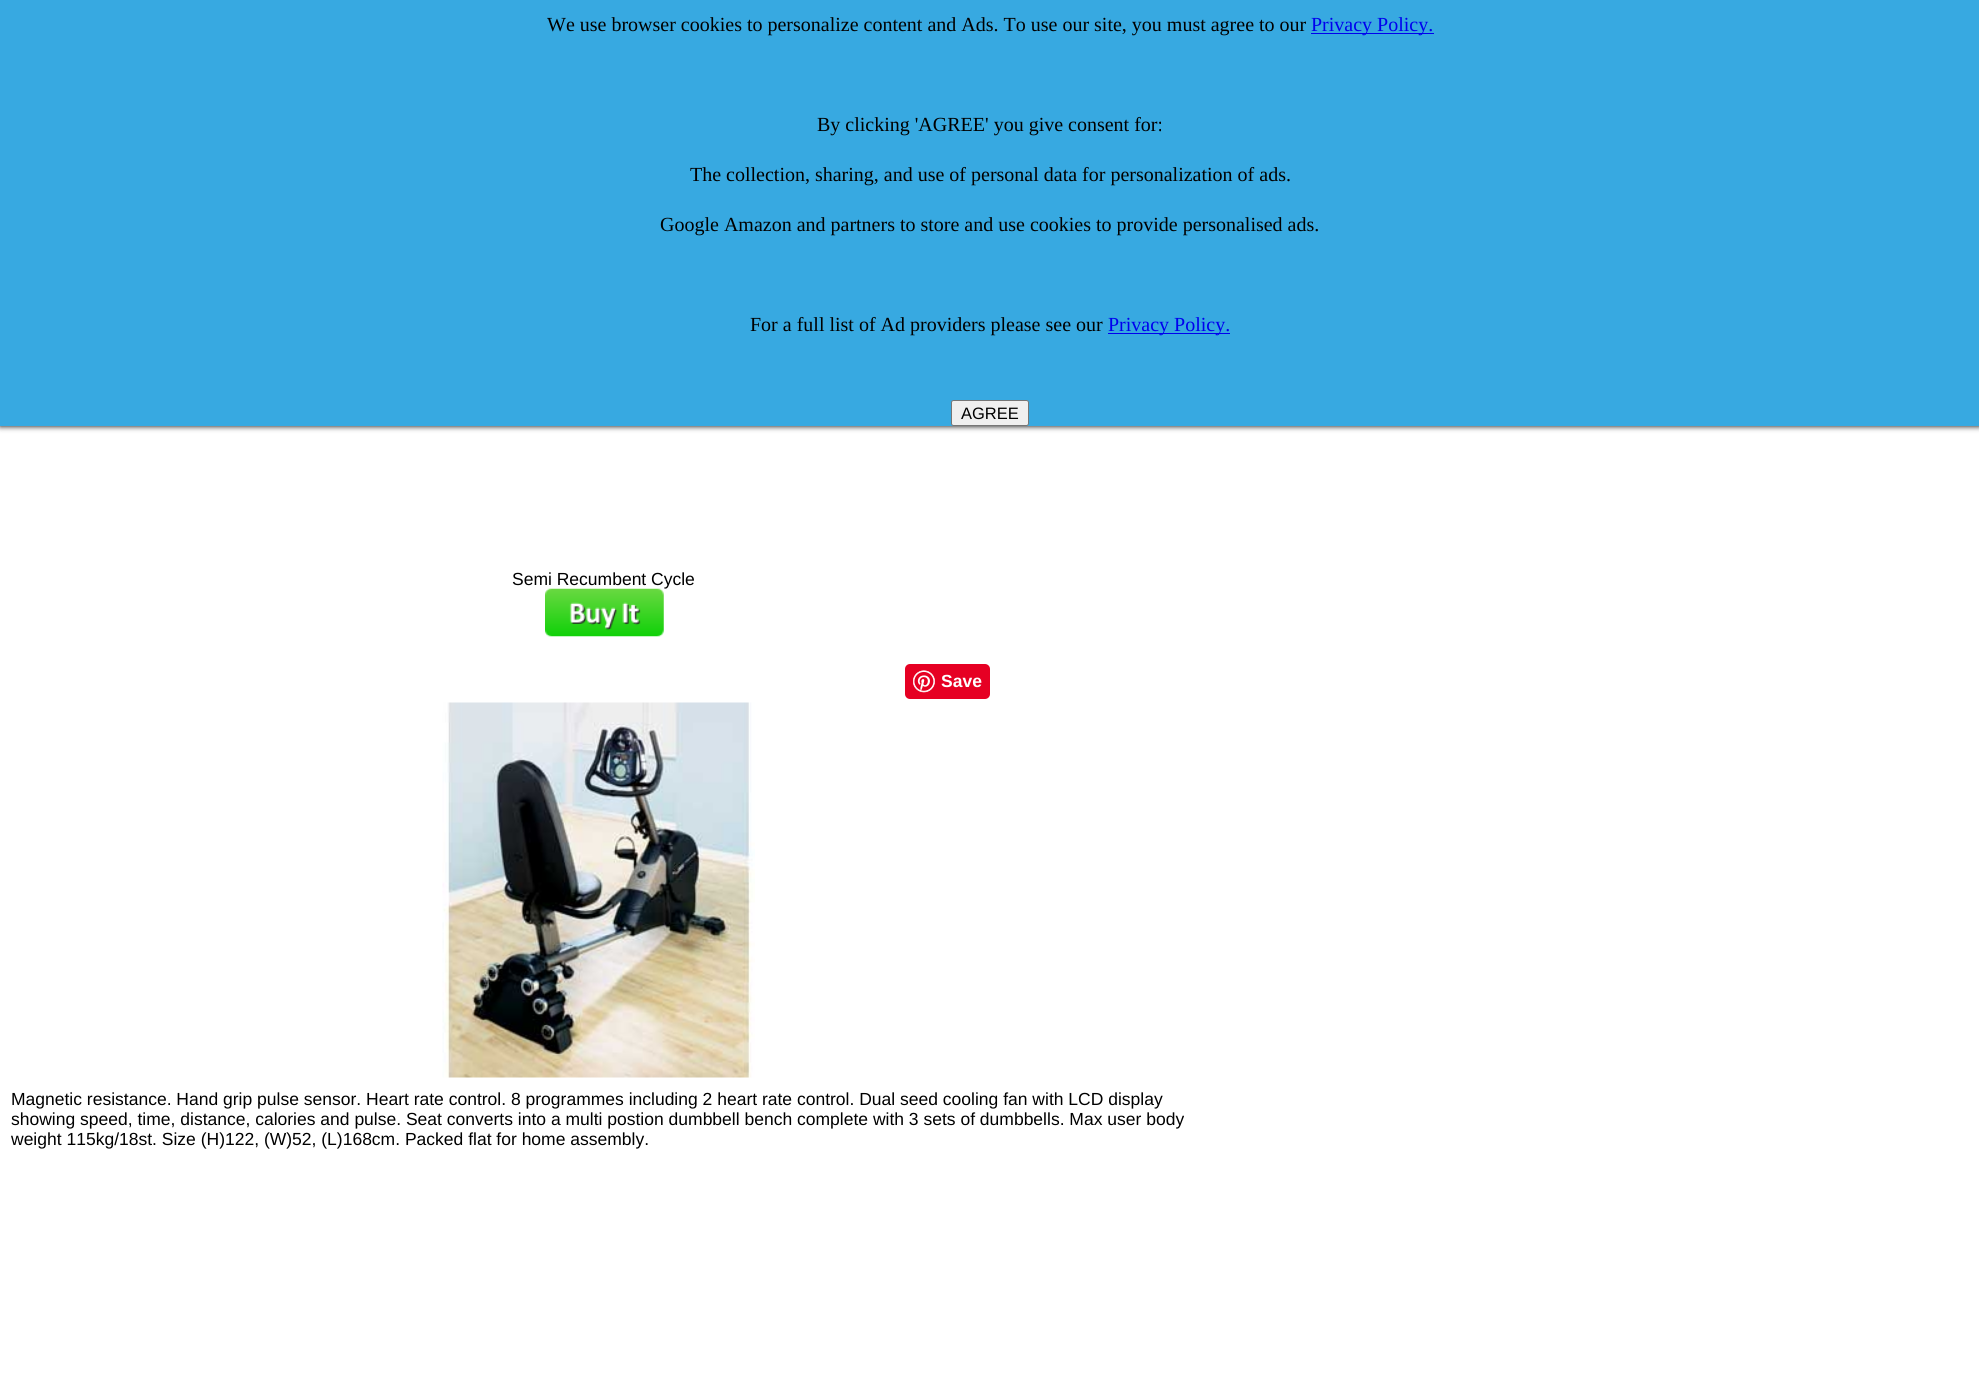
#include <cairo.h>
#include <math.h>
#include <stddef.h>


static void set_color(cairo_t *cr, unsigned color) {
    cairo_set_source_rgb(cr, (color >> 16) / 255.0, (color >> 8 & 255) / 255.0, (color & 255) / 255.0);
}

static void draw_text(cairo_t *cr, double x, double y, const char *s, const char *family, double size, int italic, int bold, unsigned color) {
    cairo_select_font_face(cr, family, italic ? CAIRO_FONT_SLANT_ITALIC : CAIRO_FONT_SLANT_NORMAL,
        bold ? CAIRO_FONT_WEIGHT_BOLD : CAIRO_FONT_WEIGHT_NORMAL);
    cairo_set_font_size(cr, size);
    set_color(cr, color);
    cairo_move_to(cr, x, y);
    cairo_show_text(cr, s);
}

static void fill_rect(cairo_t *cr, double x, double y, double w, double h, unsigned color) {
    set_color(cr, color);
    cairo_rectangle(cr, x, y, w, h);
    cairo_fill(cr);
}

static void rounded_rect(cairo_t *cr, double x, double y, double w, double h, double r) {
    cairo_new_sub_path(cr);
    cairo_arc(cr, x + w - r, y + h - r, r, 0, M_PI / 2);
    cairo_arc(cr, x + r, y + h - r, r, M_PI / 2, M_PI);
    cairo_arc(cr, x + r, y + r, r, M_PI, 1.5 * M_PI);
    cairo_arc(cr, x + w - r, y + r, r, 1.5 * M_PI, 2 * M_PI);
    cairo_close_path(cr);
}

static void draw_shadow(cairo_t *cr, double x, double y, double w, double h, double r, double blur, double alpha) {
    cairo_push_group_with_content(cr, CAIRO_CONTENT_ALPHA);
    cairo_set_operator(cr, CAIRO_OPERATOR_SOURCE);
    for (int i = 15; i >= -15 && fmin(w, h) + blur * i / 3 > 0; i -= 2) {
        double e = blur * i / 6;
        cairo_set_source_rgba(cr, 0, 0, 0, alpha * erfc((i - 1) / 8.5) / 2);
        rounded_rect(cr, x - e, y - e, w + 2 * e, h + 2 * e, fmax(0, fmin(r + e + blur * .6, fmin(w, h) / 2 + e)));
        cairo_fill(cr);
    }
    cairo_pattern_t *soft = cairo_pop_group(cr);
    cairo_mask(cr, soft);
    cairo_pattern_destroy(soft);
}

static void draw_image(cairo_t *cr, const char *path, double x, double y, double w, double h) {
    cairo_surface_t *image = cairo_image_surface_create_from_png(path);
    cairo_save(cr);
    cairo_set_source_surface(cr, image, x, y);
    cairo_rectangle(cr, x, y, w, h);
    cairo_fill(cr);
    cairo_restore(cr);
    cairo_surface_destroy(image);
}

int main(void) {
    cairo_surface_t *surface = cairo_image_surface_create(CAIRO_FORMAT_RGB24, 1979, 1383);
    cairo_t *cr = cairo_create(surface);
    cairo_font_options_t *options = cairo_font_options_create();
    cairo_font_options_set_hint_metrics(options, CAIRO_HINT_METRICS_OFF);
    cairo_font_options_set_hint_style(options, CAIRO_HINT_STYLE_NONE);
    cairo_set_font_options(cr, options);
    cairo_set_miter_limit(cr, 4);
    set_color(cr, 0xFFFFFF);
    cairo_paint(cr);
    set_color(cr, 0x000000);
    draw_shadow(cr, 0, 0, 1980, 426, 0, 3, 1);
    fill_rect(cr, 0, 0, 1979, 426, 0x37A9E1);
    draw_text(cr, 547, 31, "We use browser cookies to personalize content and Ads. To use our site, you must agree to our", "Liberation Serif", 20, 0, 0, 0x000000);
    fill_rect(cr, 1311, 33, 123, 1, 0x0000EE);
    draw_text(cr, 1311, 31, "Privacy Policy.", "Liberation Serif", 20, 0, 0, 0x0000EE);
    draw_text(cr, 817, 131, "By clicking 'AGREE' you give consent for:", "Liberation Serif", 20, 0, 0, 0x000000);
    draw_text(cr, 690, 181, "The collection, sharing, and use of personal data for personalization of ads.", "Liberation Serif", 20, 0, 0, 0x000000);
    draw_text(cr, 660, 231, "Google Amazon and partners to store and use cookies to provide personalised ads.", "Liberation Serif", 20, 0, 0, 0x000000);
    draw_text(cr, 750, 331, "For a full list of Ad providers please see our", "Liberation Serif", 20, 0, 0, 0x000000);
    fill_rect(cr, 1108, 333, 122, 1, 0x0000EE);
    draw_text(cr, 1108, 331, "Privacy Policy.", "Liberation Serif", 20, 0, 0, 0x0000EE);
    set_color(cr, 0xEFEFEF);
    rounded_rect(cr, 951.5, 400.5, 77, 25, 2);
    cairo_fill_preserve(cr);
    set_color(cr, 0x767676);
    cairo_set_line_width(cr, 1);
    cairo_stroke(cr);
    draw_text(cr, 961, 419, "AGREE", "Liberation Sans", 16.5, 0, 0, 0x000000);
    draw_text(cr, 512, 585, "Semi Recumbent Cycle", "Liberation Sans", 17.5, 0, 0, 0x000000);
    draw_image(cr, "assets/img1.png", 545, 588, 119, 49);
    set_color(cr, 0xE60023);
    rounded_rect(cr, 905, 664, 85, 35, 5);
    cairo_fill(cr);
    draw_image(cr, "assets/img2.png", 913, 670, 22, 23);
    draw_text(cr, 941, 687, "Save", "Liberation Sans", 17.5, 0, 1, 0xFFFFFF);
    draw_image(cr, "assets/img3.png", 442, 702, 313, 376);
    draw_text(cr, 11, 1105, "Magnetic resistance. Hand grip pulse sensor. Heart rate control. 8 programmes including 2 heart rate control. Dual seed cooling fan with LCD display", "Liberation Sans", 17.5, 0, 0, 0x000000);
    draw_text(cr, 11, 1125, "showing speed, time, distance, calories and pulse. Seat converts into a multi postion dumbbell bench complete with 3 sets of dumbbells. Max user body", "Liberation Sans", 17.5, 0, 0, 0x000000);
    draw_text(cr, 11, 1145, "weight 115kg/18st. Size (H)122, (W)52, (L)168cm. Packed flat for home assembly.", "Liberation Sans", 17.5, 0, 0, 0x000000);
    cairo_surface_write_to_png(surface, "output.png");
    cairo_font_options_destroy(options);
    cairo_destroy(cr);
    cairo_surface_destroy(surface);
    return 0;
}
